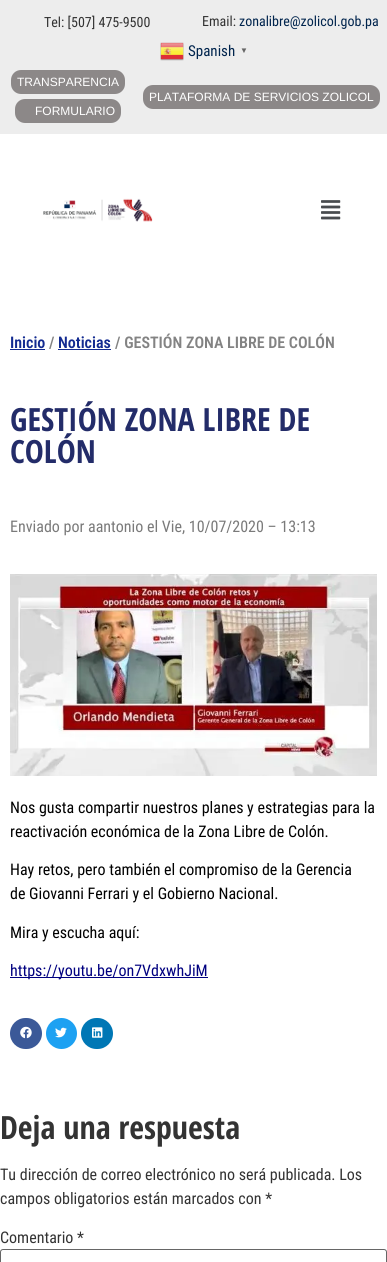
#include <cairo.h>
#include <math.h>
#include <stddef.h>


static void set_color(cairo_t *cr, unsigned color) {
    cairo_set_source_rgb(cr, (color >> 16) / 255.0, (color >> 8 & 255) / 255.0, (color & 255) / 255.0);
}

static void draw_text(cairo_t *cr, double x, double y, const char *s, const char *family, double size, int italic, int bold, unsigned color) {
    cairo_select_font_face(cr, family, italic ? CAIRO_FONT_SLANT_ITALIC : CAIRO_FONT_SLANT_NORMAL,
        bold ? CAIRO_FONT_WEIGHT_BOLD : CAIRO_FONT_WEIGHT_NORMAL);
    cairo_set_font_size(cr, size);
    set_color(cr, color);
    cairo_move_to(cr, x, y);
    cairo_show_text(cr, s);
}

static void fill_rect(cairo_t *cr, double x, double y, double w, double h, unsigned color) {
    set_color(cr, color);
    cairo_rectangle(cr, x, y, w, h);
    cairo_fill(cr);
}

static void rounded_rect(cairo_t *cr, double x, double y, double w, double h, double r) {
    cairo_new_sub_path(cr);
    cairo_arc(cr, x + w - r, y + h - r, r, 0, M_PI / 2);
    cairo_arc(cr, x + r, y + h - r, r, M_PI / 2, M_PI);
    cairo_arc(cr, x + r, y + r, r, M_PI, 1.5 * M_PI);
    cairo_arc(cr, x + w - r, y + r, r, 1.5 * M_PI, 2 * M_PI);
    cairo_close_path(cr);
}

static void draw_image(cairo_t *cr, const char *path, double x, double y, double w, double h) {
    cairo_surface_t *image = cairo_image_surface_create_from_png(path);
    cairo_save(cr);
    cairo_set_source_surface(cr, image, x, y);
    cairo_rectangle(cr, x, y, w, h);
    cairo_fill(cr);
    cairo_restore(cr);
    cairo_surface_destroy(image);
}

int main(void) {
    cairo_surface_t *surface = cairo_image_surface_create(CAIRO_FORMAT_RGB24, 387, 1262);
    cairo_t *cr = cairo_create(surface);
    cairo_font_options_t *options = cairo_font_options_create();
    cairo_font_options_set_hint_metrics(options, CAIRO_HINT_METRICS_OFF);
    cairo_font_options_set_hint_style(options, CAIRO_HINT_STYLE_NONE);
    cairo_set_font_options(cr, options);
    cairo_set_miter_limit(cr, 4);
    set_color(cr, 0xFFFFFF);
    cairo_paint(cr);
    fill_rect(cr, 0, 0, 387, 134, 0xEDEDED);
    draw_text(cr, 44, 27, "Tel: [507] 475-9500", "Roboto Condensed", 14, 0, 0, 0x333333);
    draw_text(cr, 202, 26, "Email:", "Roboto Condensed", 14, 0, 0, 0x333333);
    draw_text(cr, 239, 26, "zonalibre@zolicol.gob.pa", "Roboto Condensed", 14, 0, 0, 0x00244D);
    draw_image(cr, "assets/img1.png", 160, 42, 24, 19);
    draw_text(cr, 188, 56, "Spanish", "Roboto Condensed", 15, 0, 0, 0x00244D);
    draw_text(cr, 240, 53, "▼", "Liberation Sans", 8, 0, 1, 0x666666);
    set_color(cr, 0x8C8888);
    rounded_rect(cr, 11, 70, 114, 24, 10);
    cairo_fill(cr);
    draw_text(cr, 17, 86, "TRANSPARENCIA", "Liberation Sans", 12, 0, 0, 0xFFFFFF);
    set_color(cr, 0x8C8888);
    rounded_rect(cr, 15, 99, 106, 24, 10);
    cairo_fill(cr);
    draw_text(cr, 35, 115, "FORMULARIO", "Liberation Sans", 12, 0, 0, 0xFFFFFF);
    set_color(cr, 0x8C8888);
    rounded_rect(cr, 143, 85, 237, 24, 10);
    cairo_fill(cr);
    draw_text(cr, 149, 101, "PLATAFORMA DE SERVICIOS ZOLICOL", "Liberation Sans", 12, 0, 0, 0xFFFFFF);
    draw_image(cr, "assets/img2.png", 43, 198, 110, 24);
    draw_image(cr, "assets/img3.png", 321, 200, 20, 20);
    draw_text(cr, 10, 348, "Inicio", "Roboto Condensed SemiBold", 16, 0, 0, 0x132B91);
    fill_rect(cr, 10, 349, 35, 1, 0x132B91);
    draw_text(cr, 49, 348, "/", "Roboto Condensed SemiBold", 16, 0, 0, 0x838383);
    draw_text(cr, 58, 348, "Noticias", "Roboto Condensed SemiBold", 16, 0, 0, 0x132B91);
    fill_rect(cr, 58, 349, 53, 1, 0x132B91);
    draw_text(cr, 115, 348, "/ GESTIÓN ZONA LIBRE DE COLÓN", "Roboto Condensed SemiBold", 16, 0, 0, 0x838383);
    draw_text(cr, 10, 431, "GESTIÓN ZONA LIBRE DE", "Open Sans Condensed", 32, 0, 1, 0x232C69);
    draw_text(cr, 10, 463, "COLÓN", "Open Sans Condensed", 32, 0, 1, 0x232C69);
    draw_text(cr, 10, 532, "Enviado por aantonio el Vie, 10/07/2020 – 13:13", "Roboto Condensed", 16, 0, 0, 0x7A7A7A);
    draw_image(cr, "assets/img4.png", 10, 574, 367, 202);
    draw_text(cr, 10, 813, "Nos gusta compartir nuestros planes y estrategias para la", "Roboto Condensed", 16, 0, 0, 0x000000);
    draw_text(cr, 10, 837, "reactivación económica de la Zona Libre de Colón.", "Roboto Condensed", 16, 0, 0, 0x000000);
    draw_text(cr, 10, 875, "Hay retos, pero también el compromiso de la Gerencia", "Roboto Condensed", 16, 0, 0, 0x000000);
    draw_text(cr, 10, 899, "de Giovanni Ferrari y el Gobierno Nacional.", "Roboto Condensed", 16, 0, 0, 0x000000);
    draw_text(cr, 10, 938, "Mira y escucha aquí:", "Roboto Condensed", 16, 0, 0, 0x000000);
    fill_rect(cr, 10, 977, 198, 1, 0x000080);
    draw_text(cr, 10, 976, "https://youtu.be/on7VdxwhJiM", "Roboto Condensed", 16, 0, 0, 0x000080);
    set_color(cr, 0x3B5998);
    rounded_rect(cr, 10, 1018, 32, 31, 15.5);
    cairo_fill(cr);
    draw_image(cr, "assets/img5.png", 20, 1026, 12, 13);
    set_color(cr, 0x1DA1F2);
    cairo_arc(cr, 61.5, 1033.5, 15.5, 0, 2 * M_PI);
    cairo_fill(cr);
    draw_image(cr, "assets/img6.png", 55, 1027, 12, 11);
    set_color(cr, 0x0077B5);
    rounded_rect(cr, 81, 1018, 32, 31, 15.5);
    cairo_fill(cr);
    draw_image(cr, "assets/img7.png", 92, 1027, 11, 11);
    draw_text(cr, 0, 1139, "Deja una respuesta", "Open Sans Condensed", 32, 0, 1, 0x333333);
    draw_text(cr, 0, 1180, "Tu dirección de correo electrónico no será publicada. Los", "Roboto Condensed", 16, 0, 0, 0x333333);
    draw_text(cr, 0, 1204, "campos obligatorios están marcados con *", "Roboto Condensed", 16, 0, 0, 0x333333);
    draw_text(cr, 0, 1243, "Comentario *", "Roboto Condensed", 16, 0, 0, 0x333333);
    rounded_rect(cr, 0.5, 1249.5, 386, 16, 2.5);
    set_color(cr, 0x666666);
    cairo_set_line_width(cr, 1);
    cairo_stroke(cr);
    cairo_surface_write_to_png(surface, "output.png");
    cairo_font_options_destroy(options);
    cairo_destroy(cr);
    cairo_surface_destroy(surface);
    return 0;
}
